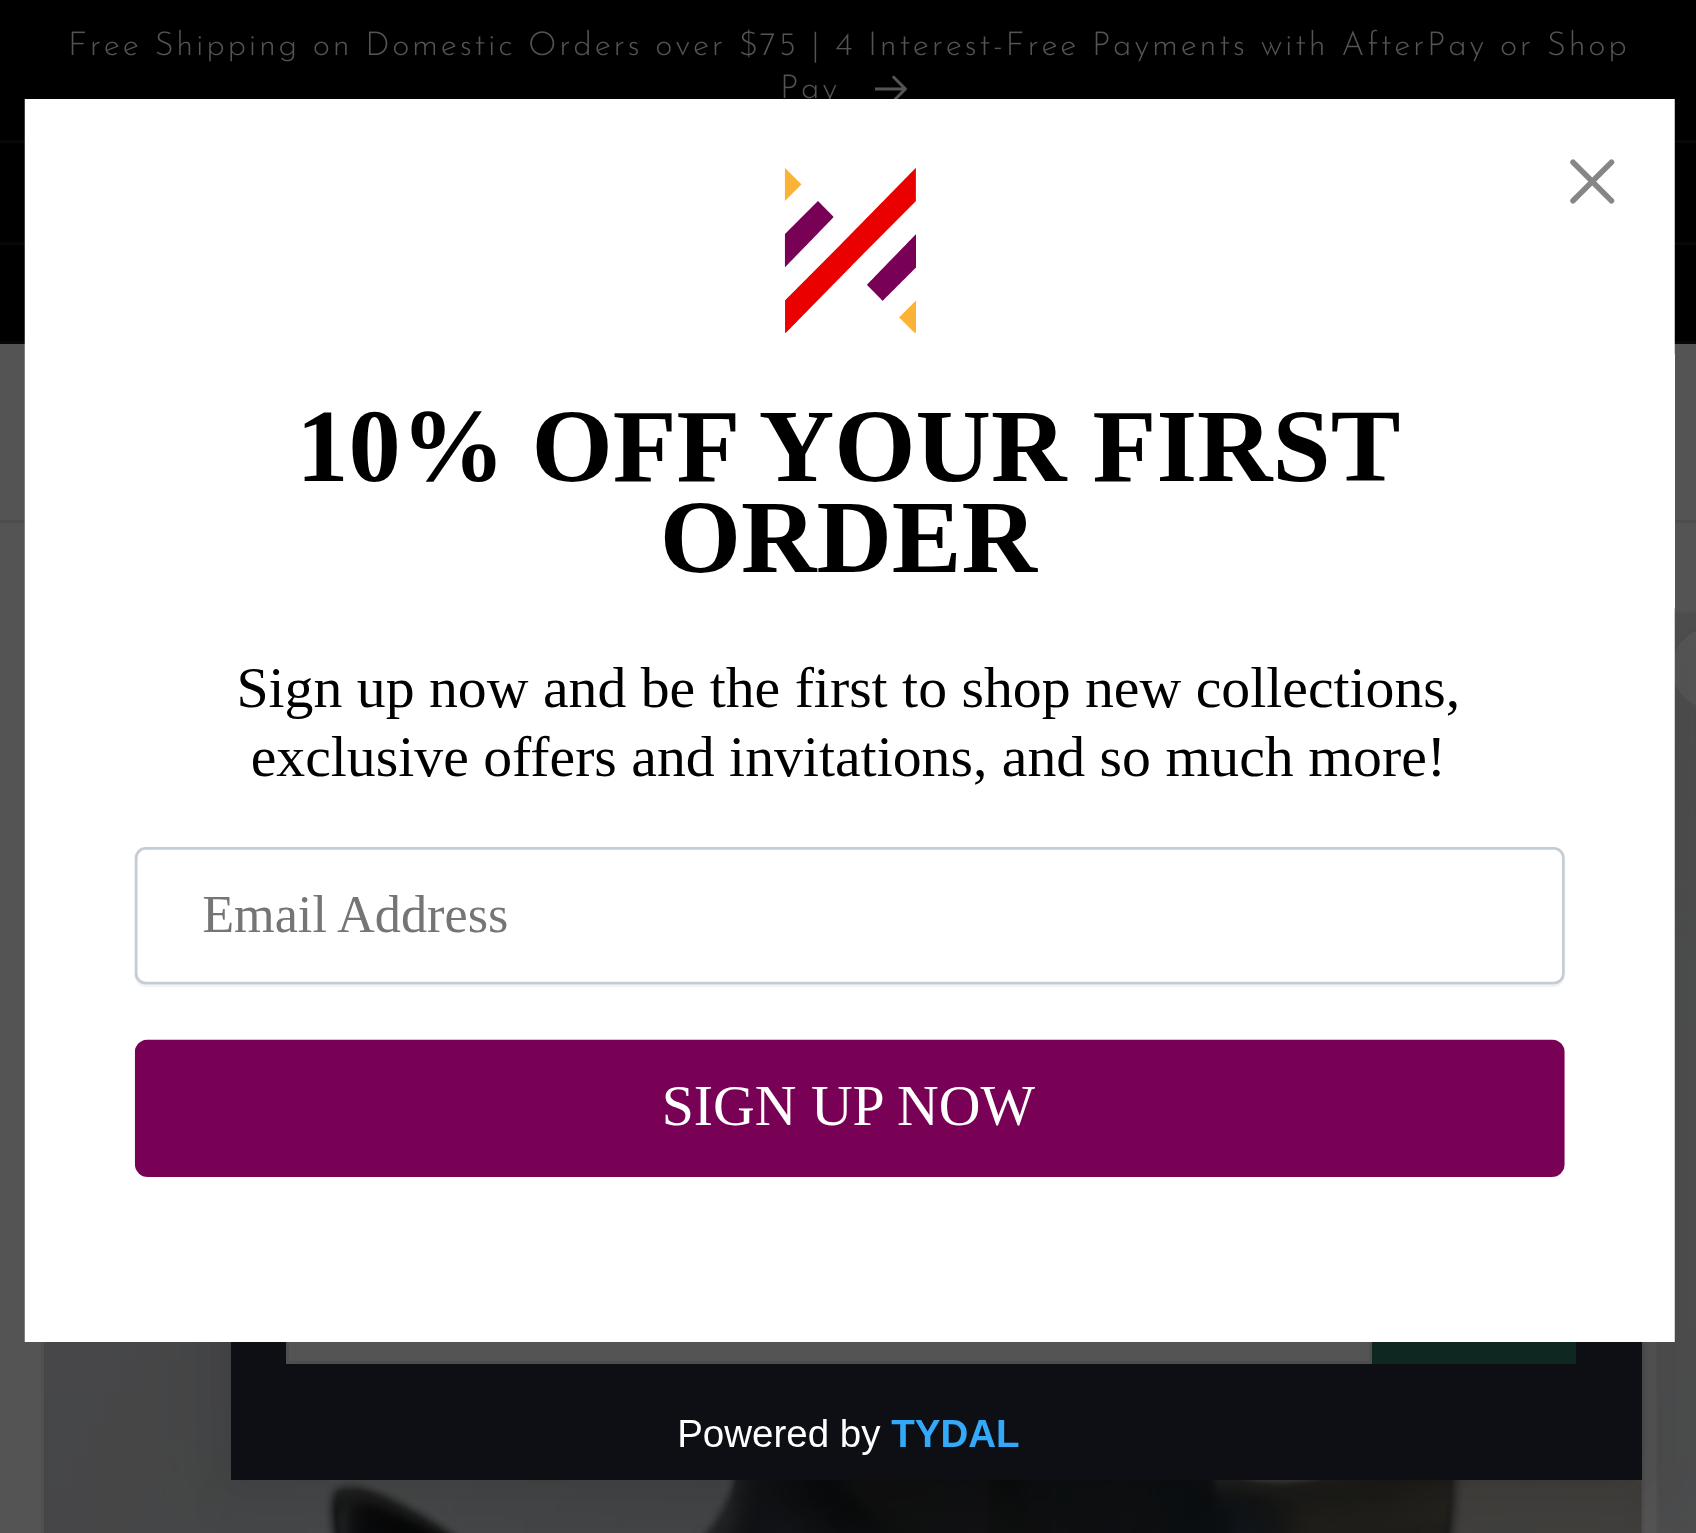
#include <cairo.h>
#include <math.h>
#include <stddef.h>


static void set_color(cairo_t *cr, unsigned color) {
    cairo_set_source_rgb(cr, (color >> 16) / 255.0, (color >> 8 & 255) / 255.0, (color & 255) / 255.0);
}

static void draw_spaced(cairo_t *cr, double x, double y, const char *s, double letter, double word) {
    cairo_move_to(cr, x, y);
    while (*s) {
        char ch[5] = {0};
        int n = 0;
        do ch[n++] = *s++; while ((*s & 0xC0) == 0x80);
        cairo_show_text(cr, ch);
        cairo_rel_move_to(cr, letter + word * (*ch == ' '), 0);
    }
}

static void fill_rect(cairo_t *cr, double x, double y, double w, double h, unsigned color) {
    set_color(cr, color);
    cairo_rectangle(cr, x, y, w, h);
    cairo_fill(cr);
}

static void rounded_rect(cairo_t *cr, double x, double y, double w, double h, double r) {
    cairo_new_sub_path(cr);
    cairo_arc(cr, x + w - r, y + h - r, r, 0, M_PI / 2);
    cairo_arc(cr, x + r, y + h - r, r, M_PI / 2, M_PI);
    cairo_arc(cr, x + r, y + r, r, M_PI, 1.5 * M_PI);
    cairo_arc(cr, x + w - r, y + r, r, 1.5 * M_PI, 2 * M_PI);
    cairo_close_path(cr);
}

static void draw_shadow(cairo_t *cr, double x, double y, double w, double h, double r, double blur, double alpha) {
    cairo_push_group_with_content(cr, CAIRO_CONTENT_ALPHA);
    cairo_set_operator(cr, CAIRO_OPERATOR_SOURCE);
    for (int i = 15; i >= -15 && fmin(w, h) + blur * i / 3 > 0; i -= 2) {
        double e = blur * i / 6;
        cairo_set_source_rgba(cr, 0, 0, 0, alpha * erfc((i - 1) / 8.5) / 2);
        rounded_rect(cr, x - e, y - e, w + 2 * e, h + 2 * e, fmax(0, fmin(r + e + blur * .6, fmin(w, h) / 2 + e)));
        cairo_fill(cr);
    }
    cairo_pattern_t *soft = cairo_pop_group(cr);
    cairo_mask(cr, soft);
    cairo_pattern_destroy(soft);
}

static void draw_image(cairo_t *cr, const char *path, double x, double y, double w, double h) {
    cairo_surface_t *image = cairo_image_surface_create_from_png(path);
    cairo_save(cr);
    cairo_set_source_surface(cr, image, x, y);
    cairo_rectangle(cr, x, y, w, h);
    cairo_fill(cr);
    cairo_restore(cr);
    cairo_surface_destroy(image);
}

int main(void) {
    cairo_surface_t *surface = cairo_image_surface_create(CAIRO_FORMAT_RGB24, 1696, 1533);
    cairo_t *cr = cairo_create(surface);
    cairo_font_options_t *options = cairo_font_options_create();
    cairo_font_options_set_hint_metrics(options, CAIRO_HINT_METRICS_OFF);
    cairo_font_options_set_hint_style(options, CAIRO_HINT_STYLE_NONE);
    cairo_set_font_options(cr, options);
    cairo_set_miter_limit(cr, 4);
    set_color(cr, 0xFFFFFF);
    cairo_paint(cr);
    fill_rect(cr, 0, 0, 1696, 140, 0x000000);
    fill_rect(cr, 0, 140, 1696, 3, 0x141414);
    cairo_select_font_face(cr, "Josefin Sans Light", CAIRO_FONT_SLANT_NORMAL, CAIRO_FONT_WEIGHT_NORMAL);
    cairo_set_font_size(cr, 33);
    set_color(cr, 0xFFFFFF);
    draw_spaced(cr, 68, 55, "Free Shipping on Domestic Orders over $75 | 4 Interest-Free Payments with AfterPay or Shop", 2.75, 0);
    draw_spaced(cr, 780, 98, "Pay", 2.75, 0);
    draw_image(cr, "assets/img2.png", 875, 75, 32, 24);
    fill_rect(cr, 0, 143, 1696, 99, 0x000000);
    fill_rect(cr, 0, 242, 1696, 3, 0x141414);
    fill_rect(cr, 0, 245, 1696, 96, 0x000000);
    fill_rect(cr, 0, 341, 1696, 3, 0x141414);
    fill_rect(cr, 0, 520, 1696, 3, 0xEBEBEB);
    cairo_rectangle(cr, 42.5, 612.5, 1601, 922);
    set_color(cr, 0xF2F2F2);
    cairo_set_line_width(cr, 3);
    cairo_stroke(cr);
    draw_image(cr, "assets/img3.png", 44, 1342, 1598, 191);
    cairo_rectangle(cr, 1657.5, 612.5, 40, 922);
    cairo_stroke(cr);
    draw_image(cr, "assets/img4.png", 1658, 613, 38, 920);
    set_color(cr, 0xFFFFFF);
    cairo_new_path(cr);
    cairo_move_to(cr, 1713, 624);
    cairo_line_to(cr, 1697, 624);
    cairo_line_to(cr, 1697, 712);
    cairo_line_to(cr, 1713, 712);
    cairo_curve_to(cr, 1688.5, 712, 1669, 692.5, 1669, 668);
    cairo_curve_to(cr, 1669, 643.5, 1688.5, 624, 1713, 624);
    cairo_close_path(cr);
    cairo_fill(cr);
    rounded_rect(cr, 1670.5, 625.5, 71, 85, 42.5);
    cairo_set_source_rgba(cr, 0, 0, 0, 0.1);
    cairo_stroke(cr);
    set_color(cr, 0x000000);
    draw_shadow(cr, 231, 666, 1411, 814, 0, 41, 0.15);
    draw_shadow(cr, 1326, 1312, 310, 165, 44, 7, 0.15);
    fill_rect(cr, 231, 1342, 1411, 138, 0x282E3F);
    fill_rect(cr, 289, 1342, 1080, 19, 0xFFFFFF);
    cairo_rectangle(cr, 287.5, 1228.5, 1083, 134);
    set_color(cr, 0xEEEEEE);
    cairo_stroke(cr);
    fill_rect(cr, 1372, 1342, 204, 22, 0x2A7664);
    draw_image(cr, "assets/img1.png", 0, 29, 1696, 1504);
    cairo_surface_write_to_png(surface, "output.png");
    cairo_font_options_destroy(options);
    cairo_destroy(cr);
    cairo_surface_destroy(surface);
    return 0;
}
